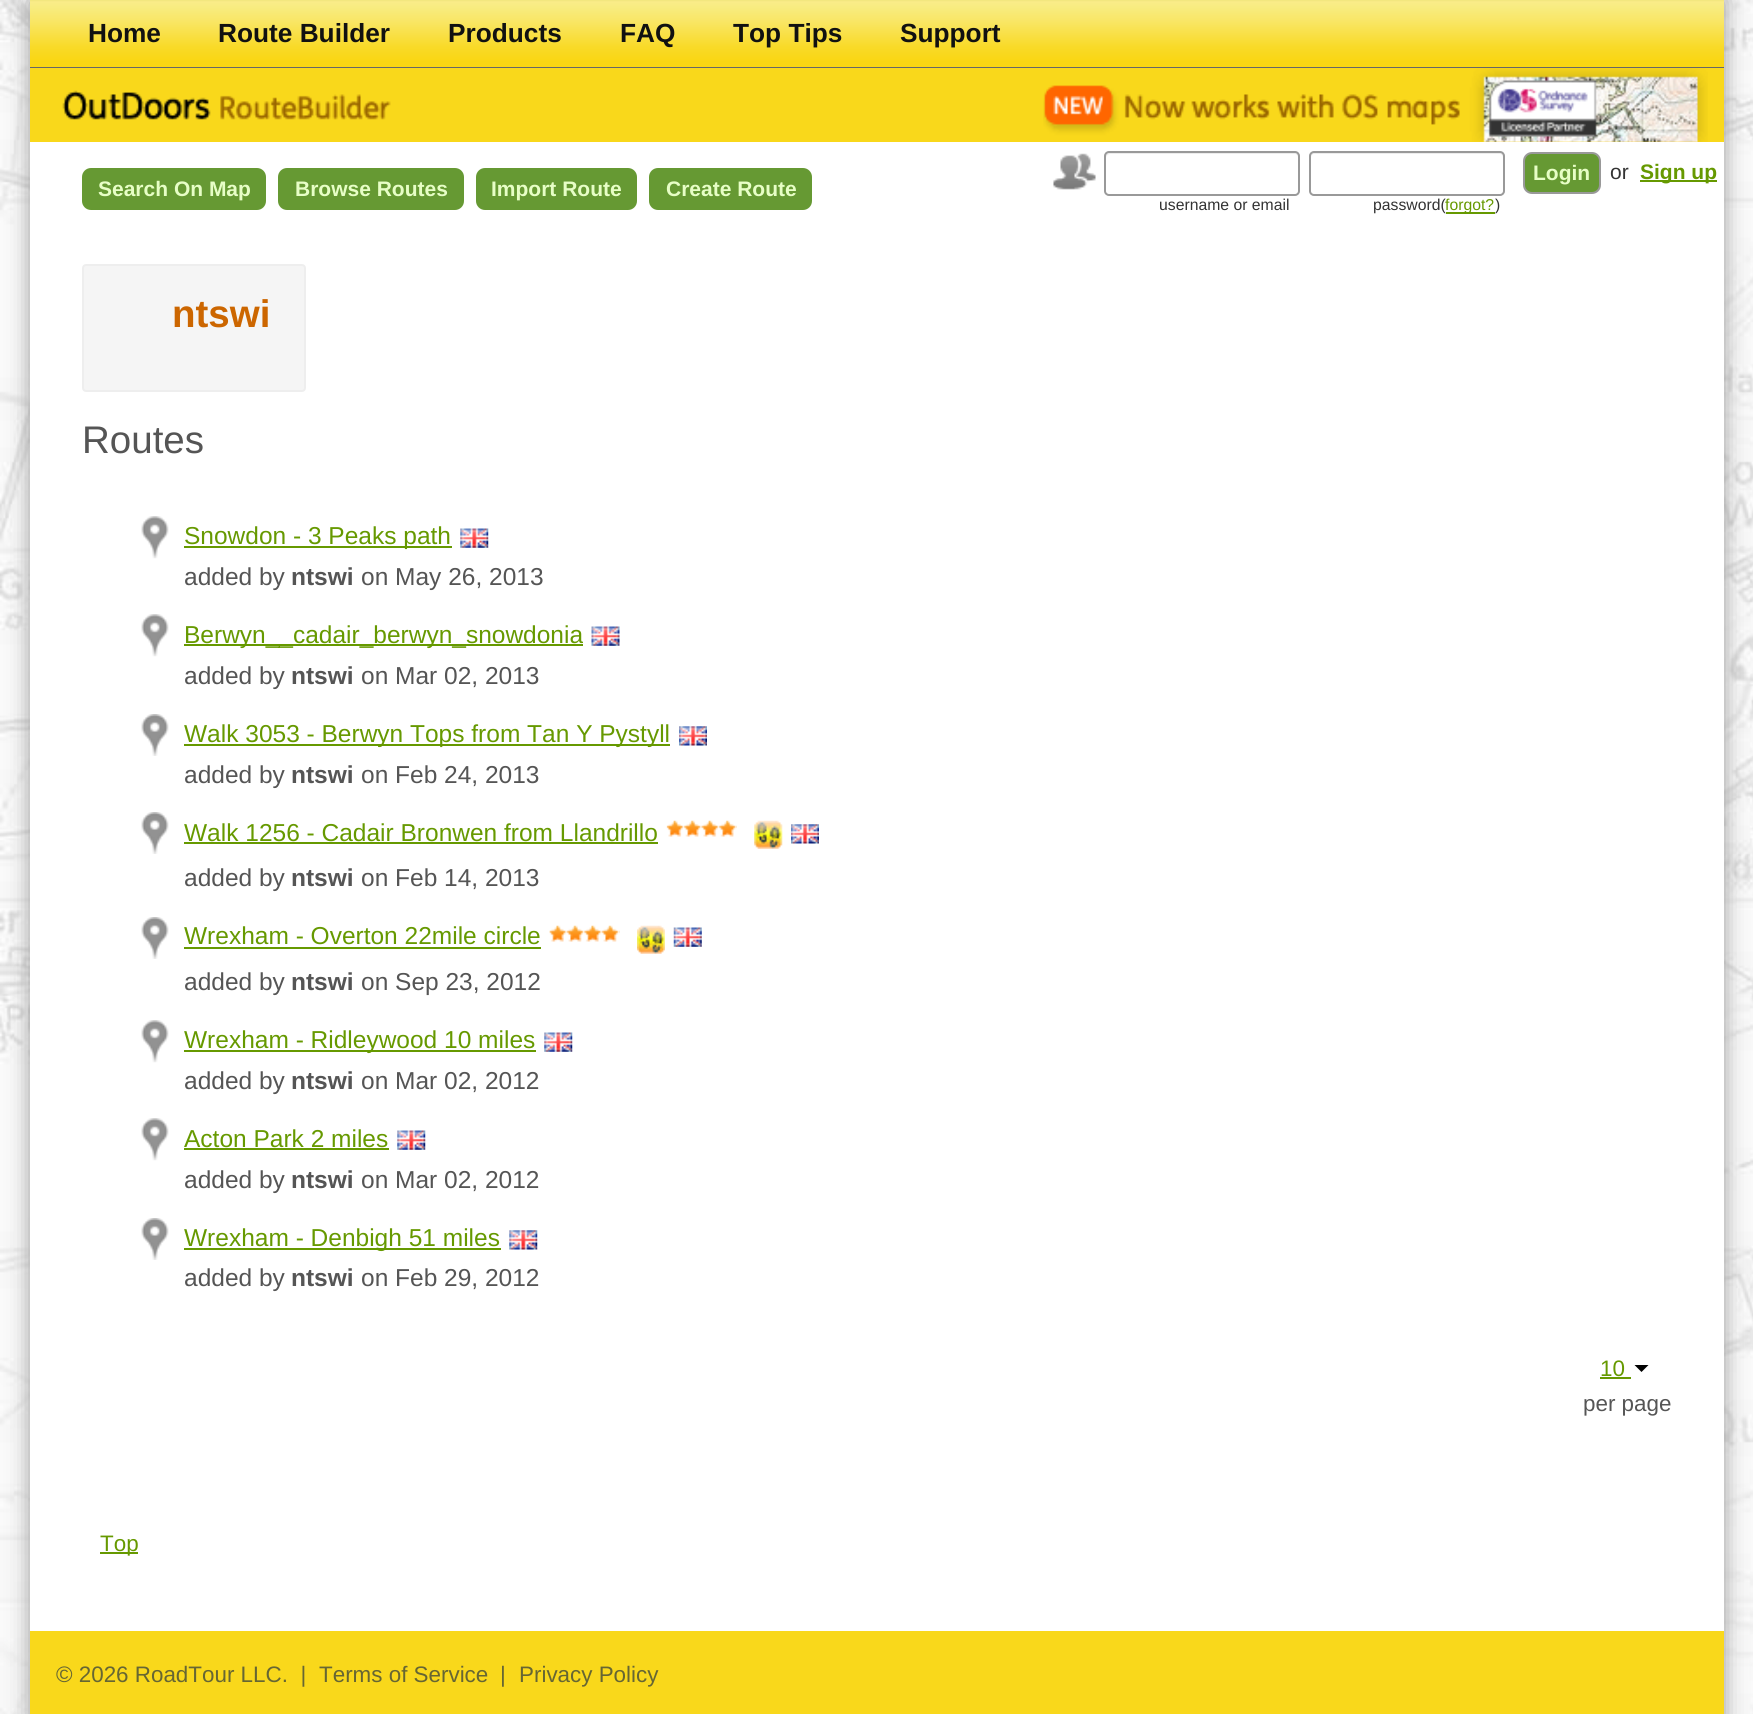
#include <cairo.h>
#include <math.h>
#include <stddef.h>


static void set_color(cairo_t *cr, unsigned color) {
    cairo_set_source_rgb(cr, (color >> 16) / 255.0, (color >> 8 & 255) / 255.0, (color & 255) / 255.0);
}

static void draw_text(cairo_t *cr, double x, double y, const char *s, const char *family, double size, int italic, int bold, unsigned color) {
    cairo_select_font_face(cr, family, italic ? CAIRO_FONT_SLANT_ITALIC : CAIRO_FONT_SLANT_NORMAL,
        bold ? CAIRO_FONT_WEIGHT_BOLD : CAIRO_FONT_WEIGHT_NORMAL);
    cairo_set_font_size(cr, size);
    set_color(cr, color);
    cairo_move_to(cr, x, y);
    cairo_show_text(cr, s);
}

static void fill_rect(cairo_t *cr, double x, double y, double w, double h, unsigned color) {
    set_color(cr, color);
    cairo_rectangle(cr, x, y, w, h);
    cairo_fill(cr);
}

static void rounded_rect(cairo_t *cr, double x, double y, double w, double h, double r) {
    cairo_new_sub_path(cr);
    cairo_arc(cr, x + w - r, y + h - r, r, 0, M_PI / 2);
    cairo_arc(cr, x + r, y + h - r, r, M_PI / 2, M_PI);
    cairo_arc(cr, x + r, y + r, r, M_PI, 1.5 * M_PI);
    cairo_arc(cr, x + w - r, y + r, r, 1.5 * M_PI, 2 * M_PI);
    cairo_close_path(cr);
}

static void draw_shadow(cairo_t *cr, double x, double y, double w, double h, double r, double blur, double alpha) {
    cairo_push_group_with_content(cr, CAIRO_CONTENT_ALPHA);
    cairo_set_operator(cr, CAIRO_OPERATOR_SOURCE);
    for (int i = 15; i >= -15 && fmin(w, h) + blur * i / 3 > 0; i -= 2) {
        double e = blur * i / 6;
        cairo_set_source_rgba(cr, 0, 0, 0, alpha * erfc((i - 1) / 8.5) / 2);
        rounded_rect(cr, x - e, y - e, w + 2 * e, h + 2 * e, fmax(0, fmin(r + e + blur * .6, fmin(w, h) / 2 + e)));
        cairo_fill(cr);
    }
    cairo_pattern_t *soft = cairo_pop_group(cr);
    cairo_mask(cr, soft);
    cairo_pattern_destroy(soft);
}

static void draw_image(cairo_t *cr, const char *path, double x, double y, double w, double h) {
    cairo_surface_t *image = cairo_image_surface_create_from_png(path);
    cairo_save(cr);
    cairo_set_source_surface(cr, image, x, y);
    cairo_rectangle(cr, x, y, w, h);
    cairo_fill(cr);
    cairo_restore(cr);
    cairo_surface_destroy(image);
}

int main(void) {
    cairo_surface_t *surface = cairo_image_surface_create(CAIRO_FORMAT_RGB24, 1753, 1714);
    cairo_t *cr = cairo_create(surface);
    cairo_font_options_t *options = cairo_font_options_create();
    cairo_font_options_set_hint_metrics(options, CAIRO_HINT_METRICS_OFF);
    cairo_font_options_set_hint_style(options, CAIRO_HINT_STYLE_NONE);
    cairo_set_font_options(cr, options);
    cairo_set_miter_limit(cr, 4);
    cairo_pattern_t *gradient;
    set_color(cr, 0xFFFFFF);
    cairo_paint(cr);
    draw_image(cr, "assets/img1.png", 0, 0, 1753, 1714);
    set_color(cr, 0x999999);
    draw_shadow(cr, 30, 0, 1694, 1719, 0, 11, 1);
    fill_rect(cr, 30, 142, 1694, 1489, 0xFFFFFF);
    gradient = cairo_pattern_create_linear(877, 0, 877, 67);
    cairo_pattern_add_color_stop_rgba(gradient, 0, 0.945, 0.902, 0.486, 1);
    cairo_pattern_add_color_stop_rgba(gradient, 0.03, 0.98, 0.925, 0.537, 1);
    cairo_pattern_add_color_stop_rgba(gradient, 0.11, 0.973, 0.925, 0.502, 1);
    cairo_pattern_add_color_stop_rgba(gradient, 0.32, 0.976, 0.902, 0.396, 1);
    cairo_pattern_add_color_stop_rgba(gradient, 0.7, 0.976, 0.855, 0.157, 1);
    cairo_pattern_add_color_stop_rgba(gradient, 0.92, 0.98, 0.839, 0.071, 1);
    cairo_pattern_add_color_stop_rgba(gradient, 1, 0.98, 0.839, 0.071, 1);
    cairo_set_source(cr, gradient);
    cairo_pattern_destroy(gradient);
    cairo_rectangle(cr, 30, 0, 1694, 67);
    cairo_fill(cr);
    fill_rect(cr, 30, 67, 1694, 1, 0x666666);
    draw_text(cr, 88, 42, "Home", "Liberation Sans", 26.25, 0, 1, 0x111111);
    draw_text(cr, 218, 42, "Route Builder", "Liberation Sans", 26.25, 0, 1, 0x111111);
    draw_text(cr, 448, 42, "Products", "Liberation Sans", 26.25, 0, 1, 0x111111);
    draw_text(cr, 620, 42, "FAQ", "Liberation Sans", 26.25, 0, 1, 0x111111);
    draw_text(cr, 733, 42, "Top Tips", "Liberation Sans", 26.25, 0, 1, 0x111111);
    draw_text(cr, 900, 42, "Support", "Liberation Sans", 26.25, 0, 1, 0x111111);
    fill_rect(cr, 30, 68, 1694, 74, 0xF9D81B);
    draw_image(cr, "assets/img2.png", 62, 90, 329, 30);
    draw_image(cr, "assets/img3.png", 1043, 68, 665, 74);
    set_color(cr, 0x669933);
    rounded_rect(cr, 82, 168, 184, 42, 9);
    cairo_fill(cr);
    draw_text(cr, 98, 196, "Search On Map", "Liberation Sans", 21, 0, 1, 0xE7FEC6);
    set_color(cr, 0x669933);
    rounded_rect(cr, 278, 168, 186, 42, 9);
    cairo_fill(cr);
    draw_text(cr, 295, 196, "Browse Routes", "Liberation Sans", 21, 0, 1, 0xE7FEC6);
    set_color(cr, 0x669933);
    rounded_rect(cr, 476, 168, 161, 42, 9);
    cairo_fill(cr);
    draw_text(cr, 491, 196, "Import Route", "Liberation Sans", 21, 0, 1, 0xE7FEC6);
    set_color(cr, 0x669933);
    rounded_rect(cr, 649, 168, 163, 42, 9);
    cairo_fill(cr);
    draw_text(cr, 666, 196, "Create Route", "Liberation Sans", 21, 0, 1, 0xE7FEC6);
    draw_image(cr, "assets/img4.png", 1053, 153, 43, 37);
    set_color(cr, 0xECECEC);
    cairo_new_path(cr);
    cairo_move_to(cr, 1110, 154);
    cairo_line_to(cr, 1295, 154);
    cairo_curve_to(cr, 1297, 154, 1298, 156, 1298, 158);
    cairo_line_to(cr, 1298, 193);
    cairo_curve_to(cr, 1299, 192, 1299, 191, 1299, 190);
    cairo_line_to(cr, 1299, 156);
    cairo_curve_to(cr, 1299, 154, 1297, 152, 1295, 152);
    cairo_line_to(cr, 1110, 152);
    cairo_curve_to(cr, 1108, 152, 1106, 154, 1106, 156);
    cairo_line_to(cr, 1106, 158);
    cairo_curve_to(cr, 1106, 156, 1108, 154, 1110, 154);
    cairo_close_path(cr);
    cairo_fill(cr);
    rounded_rect(cr, 1105, 152, 194, 43, 4);
    set_color(cr, 0x999999);
    cairo_stroke(cr);
    set_color(cr, 0xECECEC);
    cairo_new_path(cr);
    cairo_move_to(cr, 1314, 154);
    cairo_line_to(cr, 1500, 154);
    cairo_curve_to(cr, 1502, 154, 1503, 156, 1503, 158);
    cairo_line_to(cr, 1503, 156);
    cairo_curve_to(cr, 1503, 154, 1501, 152, 1499, 152);
    cairo_line_to(cr, 1315, 152);
    cairo_curve_to(cr, 1313, 152, 1311, 154, 1311, 156);
    cairo_line_to(cr, 1311, 158);
    cairo_curve_to(cr, 1311, 156, 1312, 154, 1314, 154);
    cairo_close_path(cr);
    cairo_fill(cr);
    rounded_rect(cr, 1310, 152, 194, 43, 4);
    set_color(cr, 0x999999);
    cairo_stroke(cr);
    set_color(cr, 0x669933);
    rounded_rect(cr, 1524, 153, 76, 40, 8);
    cairo_fill_preserve(cr);
    set_color(cr, 0x999999);
    cairo_stroke(cr);
    draw_text(cr, 1533, 180, "Login", "Liberation Sans", 21, 0, 1, 0xE7FEC6);
    draw_text(cr, 1610, 179, "or", "Liberation Sans", 21, 0, 0, 0x333333);
    fill_rect(cr, 1640, 180, 77, 2, 0x669900);
    draw_text(cr, 1640, 179, "Sign up", "Liberation Sans", 21, 0, 1, 0x669900);
    draw_text(cr, 1159, 210, "username or email", "Liberation Sans", 15.75, 0, 0, 0x333333);
    draw_text(cr, 1373, 210, "password(", "Liberation Sans", 15.75, 0, 0, 0x333333);
    fill_rect(cr, 1446, 212, 49, 2, 0x669900);
    draw_text(cr, 1445, 210, "forgot?", "Liberation Sans", 15.75, 0, 0, 0x669900);
    draw_text(cr, 1495, 210, ")", "Liberation Sans", 15.75, 0, 0, 0x333333);
    set_color(cr, 0xF5F5F5);
    rounded_rect(cr, 83, 265, 222, 126, 3);
    cairo_fill_preserve(cr);
    set_color(cr, 0xEEEEEE);
    cairo_stroke(cr);
    draw_text(cr, 172, 327, "ntswi", "Liberation Sans", 38.5, 0, 1, 0xCC6600);
    draw_text(cr, 82, 453, "Routes", "Liberation Sans", 38.5, 0, 0, 0x555555);
    draw_image(cr, "assets/img5.png", 141, 516, 28, 43);
    fill_rect(cr, 184, 546, 268, 2, 0x669900);
    draw_text(cr, 184, 544, "Snowdon - 3 Peaks path", "Liberation Sans", 24.5, 0, 0, 0x669900);
    draw_image(cr, "assets/img6.png", 460, 528, 29, 20);
    draw_text(cr, 184, 585, "added by", "Liberation Sans", 24.5, 0, 0, 0x555555);
    draw_text(cr, 291, 585, "ntswi", "Liberation Sans", 24.5, 0, 1, 0x555555);
    draw_text(cr, 361, 585, "on May 26, 2013", "Liberation Sans", 24.5, 0, 0, 0x555555);
    draw_image(cr, "assets/img5.png", 141, 614, 28, 43);
    fill_rect(cr, 184, 644, 399, 2, 0x669900);
    draw_text(cr, 184, 643, "Berwyn__cadair_berwyn_snowdonia", "Liberation Sans", 24.5, 0, 0, 0x669900);
    draw_image(cr, "assets/img7.png", 591, 626, 29, 20);
    draw_text(cr, 184, 684, "added by", "Liberation Sans", 24.5, 0, 0, 0x555555);
    draw_text(cr, 291, 684, "ntswi", "Liberation Sans", 24.5, 0, 1, 0x555555);
    draw_text(cr, 361, 684, "on Mar 02, 2013", "Liberation Sans", 24.5, 0, 0, 0x555555);
    draw_image(cr, "assets/img8.png", 141, 714, 28, 42);
    fill_rect(cr, 184, 744, 486, 2, 0x669900);
    draw_text(cr, 184, 742, "Walk 3053 - Berwyn Tops from Tan Y Pystyll", "Liberation Sans", 24.5, 0, 0, 0x669900);
    draw_image(cr, "assets/img9.png", 679, 726, 28, 20);
    draw_text(cr, 184, 783, "added by", "Liberation Sans", 24.5, 0, 0, 0x555555);
    draw_text(cr, 291, 783, "ntswi", "Liberation Sans", 24.5, 0, 1, 0x555555);
    draw_text(cr, 361, 783, "on Feb 24, 2013", "Liberation Sans", 24.5, 0, 0, 0x555555);
    draw_image(cr, "assets/img8.png", 141, 812, 28, 42);
    draw_text(cr, 184, 841, "Walk 1256 - Cadair Bronwen from Llandrillo", "Liberation Sans", 24.5, 0, 0, 0x669900);
    fill_rect(cr, 184, 842, 474, 2, 0x669900);
    draw_image(cr, "assets/img10.png", 666, 820, 71, 17);
    draw_image(cr, "assets/img11.png", 754, 820, 29, 29);
    draw_image(cr, "assets/img12.png", 791, 824, 28, 20);
    draw_text(cr, 184, 886, "added by", "Liberation Sans", 24.5, 0, 0, 0x555555);
    draw_text(cr, 291, 886, "ntswi", "Liberation Sans", 24.5, 0, 1, 0x555555);
    draw_text(cr, 361, 886, "on Feb 14, 2013", "Liberation Sans", 24.5, 0, 0, 0x555555);
    draw_image(cr, "assets/img8.png", 141, 917, 28, 42);
    draw_text(cr, 184, 944, "Wrexham - Overton 22mile circle", "Liberation Sans", 24.5, 0, 0, 0x669900);
    fill_rect(cr, 184, 947, 357, 2, 0x669900);
    draw_image(cr, "assets/img13.png", 549, 925, 71, 17);
    draw_image(cr, "assets/img14.png", 637, 925, 28, 29);
    draw_image(cr, "assets/img15.png", 673, 927, 29, 20);
    draw_text(cr, 184, 990, "added by", "Liberation Sans", 24.5, 0, 0, 0x555555);
    draw_text(cr, 291, 990, "ntswi", "Liberation Sans", 24.5, 0, 1, 0x555555);
    draw_text(cr, 361, 990, "on Sep 23, 2012", "Liberation Sans", 24.5, 0, 0, 0x555555);
    draw_image(cr, "assets/img5.png", 141, 1020, 28, 43);
    fill_rect(cr, 184, 1050, 352, 2, 0x669900);
    draw_text(cr, 184, 1048, "Wrexham - Ridleywood 10 miles", "Liberation Sans", 24.5, 0, 0, 0x669900);
    draw_image(cr, "assets/img16.png", 544, 1032, 29, 20);
    draw_text(cr, 184, 1089, "added by", "Liberation Sans", 24.5, 0, 0, 0x555555);
    draw_text(cr, 291, 1089, "ntswi", "Liberation Sans", 24.5, 0, 1, 0x555555);
    draw_text(cr, 361, 1089, "on Mar 02, 2012", "Liberation Sans", 24.5, 0, 0, 0x555555);
    draw_image(cr, "assets/img5.png", 141, 1118, 28, 43);
    draw_text(cr, 184, 1147, "Acton Park 2 miles", "Liberation Sans", 24.5, 0, 0, 0x669900);
    fill_rect(cr, 184, 1148, 205, 2, 0x669900);
    draw_image(cr, "assets/img6.png", 397, 1130, 29, 20);
    draw_text(cr, 184, 1188, "added by", "Liberation Sans", 24.5, 0, 0, 0x555555);
    draw_text(cr, 291, 1188, "ntswi", "Liberation Sans", 24.5, 0, 1, 0x555555);
    draw_text(cr, 361, 1188, "on Mar 02, 2012", "Liberation Sans", 24.5, 0, 0, 0x555555);
    draw_image(cr, "assets/img8.png", 141, 1218, 28, 42);
    fill_rect(cr, 184, 1248, 317, 2, 0x669900);
    draw_text(cr, 184, 1246, "Wrexham - Denbigh 51 miles", "Liberation Sans", 24.5, 0, 0, 0x669900);
    draw_image(cr, "assets/img17.png", 509, 1230, 29, 20);
    draw_text(cr, 184, 1286, "added by", "Liberation Sans", 24.5, 0, 0, 0x555555);
    draw_text(cr, 291, 1286, "ntswi", "Liberation Sans", 24.5, 0, 1, 0x555555);
    draw_text(cr, 361, 1286, "on Feb 29, 2012", "Liberation Sans", 24.5, 0, 0, 0x555555);
    draw_text(cr, 1600, 1376, "10", "Liberation Sans", 22.4, 0, 0, 0x669900);
    fill_rect(cr, 1600, 1377, 31, 2, 0x669900);
    set_color(cr, 0x000000);
    cairo_new_path(cr);
    cairo_move_to(cr, 1634.5, 1365);
    cairo_line_to(cr, 1648.5, 1365);
    cairo_line_to(cr, 1641.5, 1372);
    cairo_close_path(cr);
    cairo_fill(cr);
    draw_text(cr, 1583, 1411, "per page", "Liberation Sans", 22.4, 0, 0, 0x555555);
    fill_rect(cr, 100, 1552, 38, 2, 0x669900);
    draw_text(cr, 100, 1551, "Top", "Liberation Sans", 22.4, 0, 0, 0x669900);
    fill_rect(cr, 30, 1631, 1694, 83, 0xF9D81B);
    draw_text(cr, 56, 1682, "© 2026 RoadTour LLC.  |", "Liberation Sans", 22.4, 0, 0, 0x666633);
    draw_text(cr, 319, 1682, "Terms of Service", "Liberation Sans", 22.4, 0, 0, 0x666633);
    draw_text(cr, 500, 1682, "|", "Liberation Sans", 22.4, 0, 0, 0x666633);
    draw_text(cr, 519, 1682, "Privacy Policy", "Liberation Sans", 22.4, 0, 0, 0x666633);
    cairo_surface_write_to_png(surface, "output.png");
    cairo_font_options_destroy(options);
    cairo_destroy(cr);
    cairo_surface_destroy(surface);
    return 0;
}
